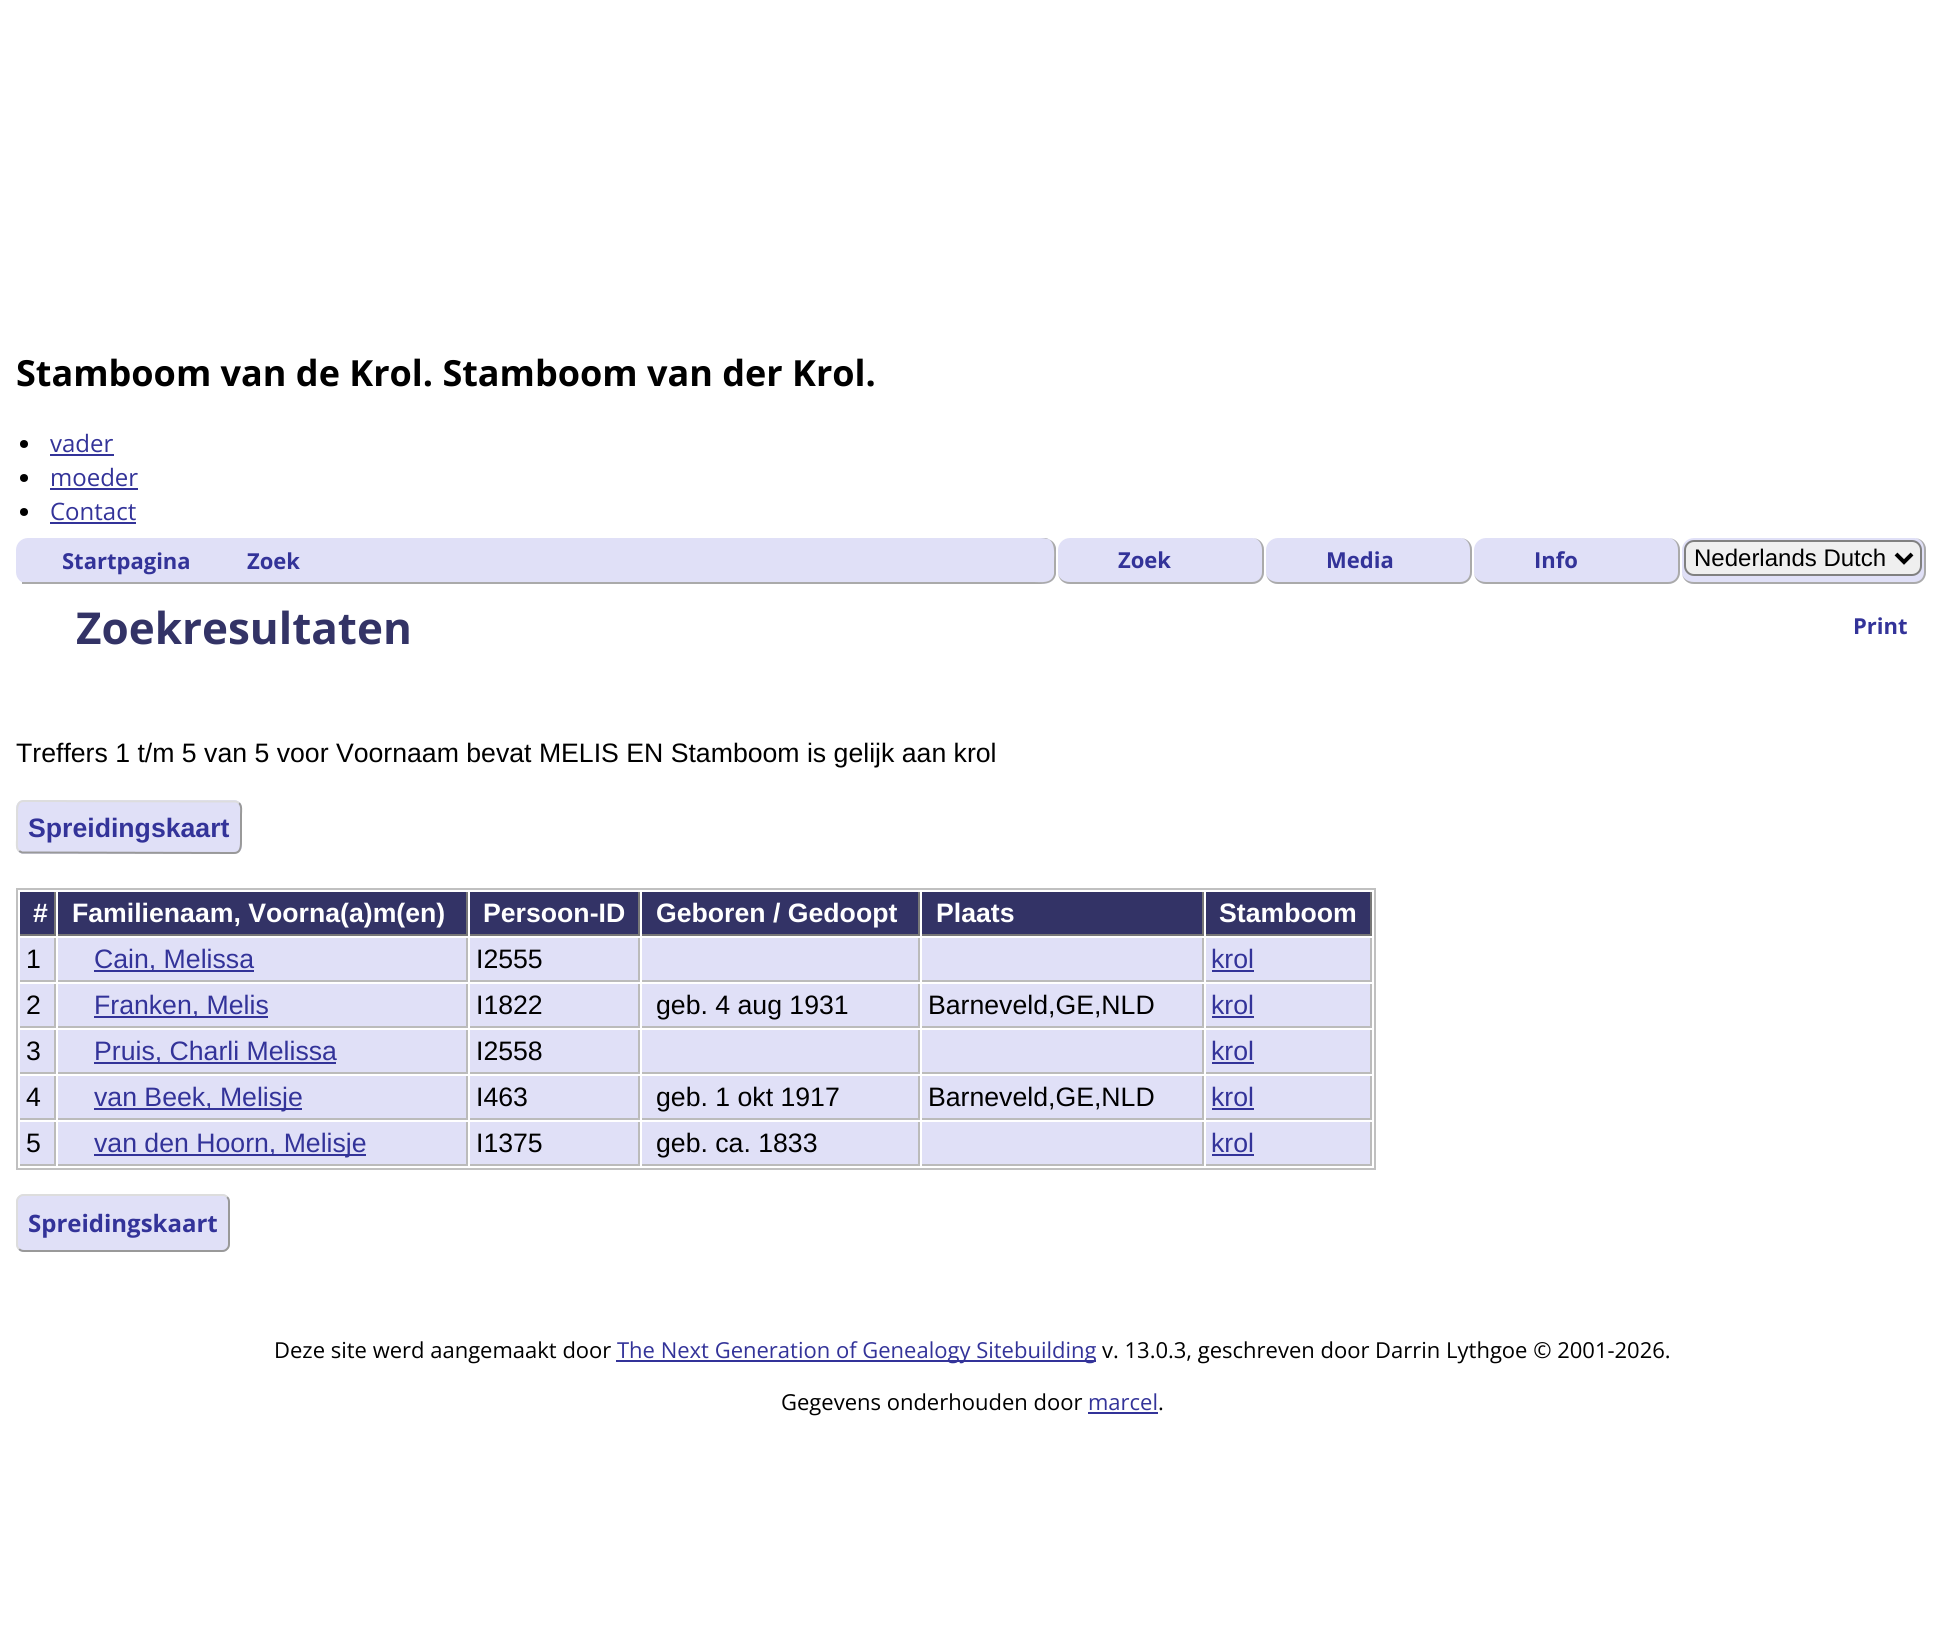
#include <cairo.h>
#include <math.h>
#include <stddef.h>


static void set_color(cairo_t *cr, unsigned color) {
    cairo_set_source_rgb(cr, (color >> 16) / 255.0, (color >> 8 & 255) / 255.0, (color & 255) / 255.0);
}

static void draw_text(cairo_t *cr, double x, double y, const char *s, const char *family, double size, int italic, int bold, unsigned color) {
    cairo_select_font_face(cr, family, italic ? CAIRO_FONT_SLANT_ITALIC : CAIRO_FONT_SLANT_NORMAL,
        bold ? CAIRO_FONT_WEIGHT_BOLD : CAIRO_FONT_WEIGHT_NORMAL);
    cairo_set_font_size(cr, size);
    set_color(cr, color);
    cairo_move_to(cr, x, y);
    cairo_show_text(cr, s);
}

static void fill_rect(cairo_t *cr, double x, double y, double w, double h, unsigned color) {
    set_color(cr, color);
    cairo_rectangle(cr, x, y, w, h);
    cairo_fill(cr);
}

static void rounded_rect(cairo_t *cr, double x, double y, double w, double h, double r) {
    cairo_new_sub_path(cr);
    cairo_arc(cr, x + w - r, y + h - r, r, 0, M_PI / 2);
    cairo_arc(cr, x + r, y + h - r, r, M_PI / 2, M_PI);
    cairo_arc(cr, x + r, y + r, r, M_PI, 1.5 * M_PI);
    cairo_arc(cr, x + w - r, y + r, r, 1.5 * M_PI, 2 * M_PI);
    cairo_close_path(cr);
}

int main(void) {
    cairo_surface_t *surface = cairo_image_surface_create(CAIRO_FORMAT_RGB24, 1943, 1628);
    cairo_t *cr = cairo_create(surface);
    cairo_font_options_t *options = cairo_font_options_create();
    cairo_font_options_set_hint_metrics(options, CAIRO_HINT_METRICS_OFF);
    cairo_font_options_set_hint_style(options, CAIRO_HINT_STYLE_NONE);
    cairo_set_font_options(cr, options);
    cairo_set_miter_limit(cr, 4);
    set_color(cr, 0xFFFFFF);
    cairo_paint(cr);
    draw_text(cr, 16, 386, "Stamboom van de Krol. Stamboom van der Krol.", "Open Sans", 36, 0, 1, 0x000000);
    cairo_new_path(cr);
    cairo_arc(cr, 24, 444, 4, 0, 2 * M_PI);
    cairo_fill(cr);
    draw_text(cr, 50, 452, "vader", "Open Sans", 24, 0, 0, 0x333399);
    fill_rect(cr, 50, 454, 64, 2, 0x333399);
    set_color(cr, 0x000000);
    cairo_new_path(cr);
    cairo_arc(cr, 24, 478, 4, 0, 2 * M_PI);
    cairo_fill(cr);
    draw_text(cr, 50, 486, "moeder", "Open Sans", 24, 0, 0, 0x333399);
    fill_rect(cr, 50, 488, 88, 2, 0x333399);
    set_color(cr, 0x000000);
    cairo_new_path(cr);
    cairo_arc(cr, 24, 512, 4, 0, 2 * M_PI);
    cairo_fill(cr);
    draw_text(cr, 50, 520, "Contact", "Open Sans", 24, 0, 0, 0x333399);
    fill_rect(cr, 50, 522, 86, 2, 0x333399);
    set_color(cr, 0xE0E0F7);
    rounded_rect(cr, 16, 538, 1912, 46, 12);
    cairo_fill(cr);
    fill_rect(cr, 22, 582, 1012, 2, 0xAAAAAA);
    draw_text(cr, 62, 569, "Startpagina", "Open Sans", 22, 0, 1, 0x333399);
    draw_text(cr, 247, 569, "Zoek", "Open Sans", 22, 0, 1, 0x333399);
    fill_rect(cr, 1044, 538, 884, 46, 0xFFFFFF);
    set_color(cr, 0xE0E0F7);
    cairo_new_path(cr);
    cairo_move_to(cr, 1034, 538);
    cairo_line_to(cr, 1044, 538);
    cairo_curve_to(cr, 1050.5, 538, 1056, 543.5, 1056, 550);
    cairo_line_to(cr, 1056, 572);
    cairo_curve_to(cr, 1056, 578.5, 1050.5, 584, 1044, 584);
    cairo_line_to(cr, 1034, 584);
    cairo_close_path(cr);
    cairo_fill(cr);
    set_color(cr, 0xAAAAAA);
    cairo_set_fill_rule(cr, CAIRO_FILL_RULE_EVEN_ODD);
    cairo_new_path(cr);
    cairo_move_to(cr, 1034, 538);
    cairo_curve_to(cr, 1042, 538, 1054, 537, 1056, 548);
    cairo_line_to(cr, 1056, 574);
    cairo_curve_to(cr, 1054, 585, 1042, 584, 1034, 584);
    cairo_close_path(cr);
    cairo_move_to(cr, 1034, 538);
    cairo_line_to(cr, 1046, 538);
    cairo_curve_to(cr, 1056, 541, 1054, 554, 1054, 561);
    cairo_line_to(cr, 1054, 574);
    cairo_curve_to(cr, 1052, 584, 1041, 582, 1034, 582);
    cairo_close_path(cr);
    cairo_fill(cr);
    set_color(cr, 0xE0E0F7);
    rounded_rect(cr, 1058, 538, 206, 46, 12);
    cairo_fill(cr);
    set_color(cr, 0xAAAAAA);
    cairo_new_path(cr);
    cairo_move_to(cr, 1070, 538);
    cairo_line_to(cr, 1252, 538);
    cairo_curve_to(cr, 1259, 538, 1264, 543, 1264, 550);
    cairo_line_to(cr, 1264, 572);
    cairo_curve_to(cr, 1264, 579, 1259, 584, 1252, 584);
    cairo_line_to(cr, 1070, 584);
    cairo_curve_to(cr, 1063, 584, 1058, 579, 1058, 572);
    cairo_line_to(cr, 1058, 550);
    cairo_curve_to(cr, 1058, 543, 1063, 538, 1070, 538);
    cairo_close_path(cr);
    cairo_move_to(cr, 1070, 538);
    cairo_line_to(cr, 1252, 538);
    cairo_curve_to(cr, 1258, 538, 1262, 543, 1262, 550);
    cairo_line_to(cr, 1262, 572);
    cairo_curve_to(cr, 1262, 578, 1258, 582, 1252, 582);
    cairo_line_to(cr, 1070, 582);
    cairo_curve_to(cr, 1063, 582, 1058, 578, 1058, 572);
    cairo_line_to(cr, 1058, 550);
    cairo_curve_to(cr, 1058, 543, 1063, 538, 1070, 538);
    cairo_close_path(cr);
    cairo_fill(cr);
    draw_text(cr, 1118, 568, "Zoek", "Open Sans", 22, 0, 1, 0x333399);
    set_color(cr, 0xE0E0F7);
    rounded_rect(cr, 1266, 538, 206, 46, 12);
    cairo_fill(cr);
    set_color(cr, 0xAAAAAA);
    cairo_new_path(cr);
    cairo_move_to(cr, 1278, 538);
    cairo_line_to(cr, 1460, 538);
    cairo_curve_to(cr, 1467, 538, 1472, 543, 1472, 550);
    cairo_line_to(cr, 1472, 572);
    cairo_curve_to(cr, 1472, 579, 1467, 584, 1460, 584);
    cairo_line_to(cr, 1278, 584);
    cairo_curve_to(cr, 1271, 584, 1266, 579, 1266, 572);
    cairo_line_to(cr, 1266, 550);
    cairo_curve_to(cr, 1266, 543, 1271, 538, 1278, 538);
    cairo_close_path(cr);
    cairo_move_to(cr, 1278, 538);
    cairo_line_to(cr, 1460, 538);
    cairo_curve_to(cr, 1466, 538, 1470, 543, 1470, 550);
    cairo_line_to(cr, 1470, 572);
    cairo_curve_to(cr, 1470, 578, 1466, 582, 1460, 582);
    cairo_line_to(cr, 1278, 582);
    cairo_curve_to(cr, 1271, 582, 1266, 578, 1266, 572);
    cairo_line_to(cr, 1266, 550);
    cairo_curve_to(cr, 1266, 543, 1271, 538, 1278, 538);
    cairo_close_path(cr);
    cairo_fill(cr);
    draw_text(cr, 1326, 568, "Media", "Open Sans", 22, 0, 1, 0x333399);
    set_color(cr, 0xE0E0F7);
    rounded_rect(cr, 1474, 538, 206, 46, 12);
    cairo_fill(cr);
    set_color(cr, 0xAAAAAA);
    cairo_new_path(cr);
    cairo_move_to(cr, 1486, 538);
    cairo_line_to(cr, 1668, 538);
    cairo_curve_to(cr, 1675, 538, 1680, 543, 1680, 550);
    cairo_line_to(cr, 1680, 572);
    cairo_curve_to(cr, 1680, 579, 1675, 584, 1668, 584);
    cairo_line_to(cr, 1486, 584);
    cairo_curve_to(cr, 1479, 584, 1474, 579, 1474, 572);
    cairo_line_to(cr, 1474, 550);
    cairo_curve_to(cr, 1474, 543, 1479, 538, 1486, 538);
    cairo_close_path(cr);
    cairo_move_to(cr, 1486, 538);
    cairo_line_to(cr, 1668, 538);
    cairo_curve_to(cr, 1674, 538, 1678, 543, 1678, 550);
    cairo_line_to(cr, 1678, 572);
    cairo_curve_to(cr, 1678, 578, 1674, 582, 1668, 582);
    cairo_line_to(cr, 1486, 582);
    cairo_curve_to(cr, 1479, 582, 1474, 578, 1474, 572);
    cairo_line_to(cr, 1474, 550);
    cairo_curve_to(cr, 1474, 543, 1479, 538, 1486, 538);
    cairo_close_path(cr);
    cairo_fill(cr);
    draw_text(cr, 1534, 568, "Info", "Open Sans", 22, 0, 1, 0x333399);
    set_color(cr, 0xE0E0F7);
    rounded_rect(cr, 1682, 538, 244, 46, 12);
    cairo_fill(cr);
    set_color(cr, 0xAAAAAA);
    cairo_new_path(cr);
    cairo_move_to(cr, 1694, 538);
    cairo_line_to(cr, 1914, 538);
    cairo_curve_to(cr, 1921, 538, 1926, 543, 1926, 550);
    cairo_line_to(cr, 1926, 572);
    cairo_curve_to(cr, 1926, 579, 1921, 584, 1914, 584);
    cairo_line_to(cr, 1694, 584);
    cairo_curve_to(cr, 1687, 584, 1682, 579, 1682, 572);
    cairo_line_to(cr, 1682, 550);
    cairo_curve_to(cr, 1682, 543, 1687, 538, 1694, 538);
    cairo_close_path(cr);
    cairo_move_to(cr, 1694, 538);
    cairo_line_to(cr, 1914, 538);
    cairo_curve_to(cr, 1920, 538, 1924, 543, 1924, 550);
    cairo_line_to(cr, 1924, 572);
    cairo_curve_to(cr, 1924, 578, 1920, 582, 1914, 582);
    cairo_line_to(cr, 1694, 582);
    cairo_curve_to(cr, 1687, 582, 1682, 578, 1682, 572);
    cairo_line_to(cr, 1682, 550);
    cairo_curve_to(cr, 1682, 543, 1687, 538, 1694, 538);
    cairo_close_path(cr);
    cairo_fill(cr);
    set_color(cr, 0xEFEFEF);
    rounded_rect(cr, 1685, 541, 236, 34, 9);
    cairo_fill_preserve(cr);
    set_color(cr, 0x808080);
    cairo_stroke(cr);
    cairo_new_path(cr);
    cairo_move_to(cr, 1896, 554);
    cairo_line_to(cr, 1904, 562);
    cairo_line_to(cr, 1912, 554);
    set_color(cr, 0x000000);
    cairo_set_line_width(cr, 4);
    cairo_stroke(cr);
    draw_text(cr, 1694, 566, "Nederlands Dutch", "Liberation Sans", 24, 0, 0, 0x000000);
    draw_text(cr, 76, 644, "Zoekresultaten", "Open Sans", 44, 0, 1, 0x333366);
    draw_text(cr, 1853, 634, "Print", "Open Sans", 22, 0, 1, 0x333399);
    draw_text(cr, 16, 762, "Treffers 1 t/m 5 van 5 voor Voornaam bevat MELIS EN Stamboom is gelijk aan krol", "Liberation Sans", 26.65, 0, 0, 0x000000);
    set_color(cr, 0xE0E0F7);
    rounded_rect(cr, 16, 800, 226, 54, 8);
    cairo_fill(cr);
    cairo_new_path(cr);
    cairo_move_to(cr, 239, 803);
    cairo_curve_to(cr, 242, 806, 241, 810.5, 241, 814.5);
    cairo_line_to(cr, 241, 839.5);
    cairo_curve_to(cr, 241, 845, 241.5, 853, 234, 853);
    cairo_line_to(cr, 22, 852.5);
    cairo_line_to(cr, 19, 851);
    set_color(cr, 0x999999);
    cairo_set_line_width(cr, 2);
    cairo_stroke(cr);
    cairo_new_path(cr);
    cairo_move_to(cr, 19, 851);
    cairo_curve_to(cr, 16, 848, 17, 843.5, 17, 839.5);
    cairo_line_to(cr, 17, 814.5);
    cairo_curve_to(cr, 17, 809, 16.5, 801, 24, 801);
    cairo_line_to(cr, 236, 801.5);
    cairo_line_to(cr, 239, 803);
    set_color(cr, 0xDDDDDD);
    cairo_stroke(cr);
    draw_text(cr, 28, 837, "Spreidingskaart", "Liberation Sans", 26.65, 0, 1, 0x333399);
    cairo_rectangle(cr, 17, 889, 1358, 280);
    set_color(cr, 0xC0C0C0);
    cairo_stroke(cr);
    fill_rect(cr, 20, 892, 34, 42, 0x333366);
    fill_rect(cr, 54, 892, 2, 44, 0x777777);
    fill_rect(cr, 20, 934, 36, 2, 0x777777);
    draw_text(cr, 33, 922, "#", "Liberation Sans", 26.65, 0, 1, 0xFFFFFF);
    fill_rect(cr, 58, 892, 408, 42, 0x333366);
    fill_rect(cr, 466, 892, 2, 44, 0x777777);
    fill_rect(cr, 58, 934, 410, 2, 0x777777);
    draw_text(cr, 72, 922, "Familienaam, Voorna(a)m(en)", "Liberation Sans", 26.65, 0, 1, 0xFFFFFF);
    fill_rect(cr, 470, 892, 168, 42, 0x333366);
    fill_rect(cr, 638, 892, 2, 44, 0x777777);
    fill_rect(cr, 470, 934, 170, 2, 0x777777);
    draw_text(cr, 483, 922, "Persoon-ID", "Liberation Sans", 26.65, 0, 1, 0xFFFFFF);
    fill_rect(cr, 642, 892, 276, 42, 0x333366);
    fill_rect(cr, 918, 892, 2, 44, 0x777777);
    fill_rect(cr, 642, 934, 278, 2, 0x777777);
    draw_text(cr, 656, 922, "Geboren / Gedoopt", "Liberation Sans", 26.65, 0, 1, 0xFFFFFF);
    fill_rect(cr, 922, 892, 280, 42, 0x333366);
    fill_rect(cr, 1202, 892, 2, 44, 0x777777);
    fill_rect(cr, 922, 934, 282, 2, 0x777777);
    draw_text(cr, 936, 922, "Plaats", "Liberation Sans", 26.65, 0, 1, 0xFFFFFF);
    fill_rect(cr, 1206, 892, 164, 42, 0x333366);
    fill_rect(cr, 1370, 892, 2, 44, 0x777777);
    fill_rect(cr, 1206, 934, 166, 2, 0x777777);
    draw_text(cr, 1219, 922, "Stamboom", "Liberation Sans", 26.65, 0, 1, 0xFFFFFF);
    fill_rect(cr, 20, 938, 34, 42, 0xE0E0F7);
    fill_rect(cr, 54, 938, 2, 44, 0xBBBBBB);
    fill_rect(cr, 20, 980, 36, 2, 0xBBBBBB);
    draw_text(cr, 26, 968, "1", "Liberation Sans", 26.65, 0, 0, 0x000000);
    fill_rect(cr, 58, 938, 408, 42, 0xE0E0F7);
    fill_rect(cr, 466, 938, 2, 44, 0xBBBBBB);
    fill_rect(cr, 58, 980, 410, 2, 0xBBBBBB);
    fill_rect(cr, 94, 970, 160, 2, 0x333399);
    draw_text(cr, 94, 968, "Cain, Melissa", "Liberation Sans", 26.65, 0, 0, 0x333399);
    fill_rect(cr, 470, 938, 168, 42, 0xE0E0F7);
    fill_rect(cr, 638, 938, 2, 44, 0xBBBBBB);
    fill_rect(cr, 470, 980, 170, 2, 0xBBBBBB);
    draw_text(cr, 476, 968, "I2555", "Liberation Sans", 26.65, 0, 0, 0x000000);
    fill_rect(cr, 642, 938, 276, 42, 0xE0E0F7);
    fill_rect(cr, 918, 938, 2, 44, 0xBBBBBB);
    fill_rect(cr, 642, 980, 278, 2, 0xBBBBBB);
    fill_rect(cr, 922, 938, 280, 42, 0xE0E0F7);
    fill_rect(cr, 1202, 938, 2, 44, 0xBBBBBB);
    fill_rect(cr, 922, 980, 282, 2, 0xBBBBBB);
    fill_rect(cr, 1206, 938, 164, 42, 0xE0E0F7);
    fill_rect(cr, 1370, 938, 2, 44, 0xBBBBBB);
    fill_rect(cr, 1206, 980, 166, 2, 0xBBBBBB);
    draw_text(cr, 1211, 968, "krol", "Liberation Sans", 26.65, 0, 0, 0x333399);
    fill_rect(cr, 1212, 970, 42, 2, 0x333399);
    fill_rect(cr, 20, 984, 34, 42, 0xE0E0F7);
    fill_rect(cr, 54, 984, 2, 44, 0xBBBBBB);
    fill_rect(cr, 20, 1026, 36, 2, 0xBBBBBB);
    draw_text(cr, 26, 1014, "2", "Liberation Sans", 26.65, 0, 0, 0x000000);
    fill_rect(cr, 58, 984, 408, 42, 0xE0E0F7);
    fill_rect(cr, 466, 984, 2, 44, 0xBBBBBB);
    fill_rect(cr, 58, 1026, 410, 2, 0xBBBBBB);
    fill_rect(cr, 94, 1016, 174, 2, 0x333399);
    draw_text(cr, 94, 1014, "Franken, Melis", "Liberation Sans", 26.65, 0, 0, 0x333399);
    fill_rect(cr, 470, 984, 168, 42, 0xE0E0F7);
    fill_rect(cr, 638, 984, 2, 44, 0xBBBBBB);
    fill_rect(cr, 470, 1026, 170, 2, 0xBBBBBB);
    draw_text(cr, 476, 1014, "I1822", "Liberation Sans", 26.65, 0, 0, 0x000000);
    fill_rect(cr, 642, 984, 276, 42, 0xE0E0F7);
    fill_rect(cr, 918, 984, 2, 44, 0xBBBBBB);
    fill_rect(cr, 642, 1026, 278, 2, 0xBBBBBB);
    draw_text(cr, 656, 1014, "geb. 4 aug 1931", "Liberation Sans", 26.65, 0, 0, 0x000000);
    fill_rect(cr, 922, 984, 280, 42, 0xE0E0F7);
    fill_rect(cr, 1202, 984, 2, 44, 0xBBBBBB);
    fill_rect(cr, 922, 1026, 282, 2, 0xBBBBBB);
    draw_text(cr, 928, 1014, "Barneveld,GE,NLD", "Liberation Sans", 26.65, 0, 0, 0x000000);
    fill_rect(cr, 1206, 984, 164, 42, 0xE0E0F7);
    fill_rect(cr, 1370, 984, 2, 44, 0xBBBBBB);
    fill_rect(cr, 1206, 1026, 166, 2, 0xBBBBBB);
    draw_text(cr, 1211, 1014, "krol", "Liberation Sans", 26.65, 0, 0, 0x333399);
    fill_rect(cr, 1212, 1016, 42, 2, 0x333399);
    fill_rect(cr, 20, 1030, 34, 42, 0xE0E0F7);
    fill_rect(cr, 54, 1030, 2, 44, 0xBBBBBB);
    fill_rect(cr, 20, 1072, 36, 2, 0xBBBBBB);
    draw_text(cr, 26, 1060, "3", "Liberation Sans", 26.65, 0, 0, 0x000000);
    fill_rect(cr, 58, 1030, 408, 42, 0xE0E0F7);
    fill_rect(cr, 466, 1030, 2, 44, 0xBBBBBB);
    fill_rect(cr, 58, 1072, 410, 2, 0xBBBBBB);
    fill_rect(cr, 94, 1062, 242, 2, 0x333399);
    draw_text(cr, 94, 1060, "Pruis, Charli Melissa", "Liberation Sans", 26.65, 0, 0, 0x333399);
    fill_rect(cr, 470, 1030, 168, 42, 0xE0E0F7);
    fill_rect(cr, 638, 1030, 2, 44, 0xBBBBBB);
    fill_rect(cr, 470, 1072, 170, 2, 0xBBBBBB);
    draw_text(cr, 476, 1060, "I2558", "Liberation Sans", 26.65, 0, 0, 0x000000);
    fill_rect(cr, 642, 1030, 276, 42, 0xE0E0F7);
    fill_rect(cr, 918, 1030, 2, 44, 0xBBBBBB);
    fill_rect(cr, 642, 1072, 278, 2, 0xBBBBBB);
    fill_rect(cr, 922, 1030, 280, 42, 0xE0E0F7);
    fill_rect(cr, 1202, 1030, 2, 44, 0xBBBBBB);
    fill_rect(cr, 922, 1072, 282, 2, 0xBBBBBB);
    fill_rect(cr, 1206, 1030, 164, 42, 0xE0E0F7);
    fill_rect(cr, 1370, 1030, 2, 44, 0xBBBBBB);
    fill_rect(cr, 1206, 1072, 166, 2, 0xBBBBBB);
    draw_text(cr, 1211, 1060, "krol", "Liberation Sans", 26.65, 0, 0, 0x333399);
    fill_rect(cr, 1212, 1062, 42, 2, 0x333399);
    fill_rect(cr, 20, 1076, 34, 42, 0xE0E0F7);
    fill_rect(cr, 54, 1076, 2, 44, 0xBBBBBB);
    fill_rect(cr, 20, 1118, 36, 2, 0xBBBBBB);
    draw_text(cr, 26, 1106, "4", "Liberation Sans", 26.65, 0, 0, 0x000000);
    fill_rect(cr, 58, 1076, 408, 42, 0xE0E0F7);
    fill_rect(cr, 466, 1076, 2, 44, 0xBBBBBB);
    fill_rect(cr, 58, 1118, 410, 2, 0xBBBBBB);
    fill_rect(cr, 94, 1108, 208, 2, 0x333399);
    draw_text(cr, 94, 1106, "van Beek, Melisje", "Liberation Sans", 26.65, 0, 0, 0x333399);
    fill_rect(cr, 470, 1076, 168, 42, 0xE0E0F7);
    fill_rect(cr, 638, 1076, 2, 44, 0xBBBBBB);
    fill_rect(cr, 470, 1118, 170, 2, 0xBBBBBB);
    draw_text(cr, 476, 1106, "I463", "Liberation Sans", 26.65, 0, 0, 0x000000);
    fill_rect(cr, 642, 1076, 276, 42, 0xE0E0F7);
    fill_rect(cr, 918, 1076, 2, 44, 0xBBBBBB);
    fill_rect(cr, 642, 1118, 278, 2, 0xBBBBBB);
    draw_text(cr, 656, 1106, "geb. 1 okt 1917", "Liberation Sans", 26.65, 0, 0, 0x000000);
    fill_rect(cr, 922, 1076, 280, 42, 0xE0E0F7);
    fill_rect(cr, 1202, 1076, 2, 44, 0xBBBBBB);
    fill_rect(cr, 922, 1118, 282, 2, 0xBBBBBB);
    draw_text(cr, 928, 1106, "Barneveld,GE,NLD", "Liberation Sans", 26.65, 0, 0, 0x000000);
    fill_rect(cr, 1206, 1076, 164, 42, 0xE0E0F7);
    fill_rect(cr, 1370, 1076, 2, 44, 0xBBBBBB);
    fill_rect(cr, 1206, 1118, 166, 2, 0xBBBBBB);
    draw_text(cr, 1211, 1106, "krol", "Liberation Sans", 26.65, 0, 0, 0x333399);
    fill_rect(cr, 1212, 1108, 42, 2, 0x333399);
    fill_rect(cr, 20, 1122, 34, 42, 0xE0E0F7);
    fill_rect(cr, 54, 1122, 2, 44, 0xBBBBBB);
    fill_rect(cr, 20, 1164, 36, 2, 0xBBBBBB);
    draw_text(cr, 26, 1152, "5", "Liberation Sans", 26.65, 0, 0, 0x000000);
    fill_rect(cr, 58, 1122, 408, 42, 0xE0E0F7);
    fill_rect(cr, 466, 1122, 2, 44, 0xBBBBBB);
    fill_rect(cr, 58, 1164, 410, 2, 0xBBBBBB);
    fill_rect(cr, 94, 1154, 272, 2, 0x333399);
    draw_text(cr, 94, 1152, "van den Hoorn, Melisje", "Liberation Sans", 26.65, 0, 0, 0x333399);
    fill_rect(cr, 470, 1122, 168, 42, 0xE0E0F7);
    fill_rect(cr, 638, 1122, 2, 44, 0xBBBBBB);
    fill_rect(cr, 470, 1164, 170, 2, 0xBBBBBB);
    draw_text(cr, 476, 1152, "I1375", "Liberation Sans", 26.65, 0, 0, 0x000000);
    fill_rect(cr, 642, 1122, 276, 42, 0xE0E0F7);
    fill_rect(cr, 918, 1122, 2, 44, 0xBBBBBB);
    fill_rect(cr, 642, 1164, 278, 2, 0xBBBBBB);
    draw_text(cr, 656, 1152, "geb. ca. 1833", "Liberation Sans", 26.65, 0, 0, 0x000000);
    fill_rect(cr, 922, 1122, 280, 42, 0xE0E0F7);
    fill_rect(cr, 1202, 1122, 2, 44, 0xBBBBBB);
    fill_rect(cr, 922, 1164, 282, 2, 0xBBBBBB);
    fill_rect(cr, 1206, 1122, 164, 42, 0xE0E0F7);
    fill_rect(cr, 1370, 1122, 2, 44, 0xBBBBBB);
    fill_rect(cr, 1206, 1164, 166, 2, 0xBBBBBB);
    draw_text(cr, 1211, 1152, "krol", "Liberation Sans", 26.65, 0, 0, 0x333399);
    fill_rect(cr, 1212, 1154, 42, 2, 0x333399);
    set_color(cr, 0xE0E0F7);
    rounded_rect(cr, 16, 1194, 214, 58, 8);
    cairo_fill(cr);
    cairo_new_path(cr);
    cairo_move_to(cr, 227, 1197);
    cairo_curve_to(cr, 228.5, 1198.5, 229, 1200, 229, 1202);
    cairo_line_to(cr, 229, 1244);
    cairo_curve_to(cr, 229, 1246, 228.5, 1247.5, 227, 1249);
    cairo_curve_to(cr, 225.5, 1250.5, 224, 1251, 222, 1251);
    cairo_line_to(cr, 24, 1251);
    cairo_curve_to(cr, 22, 1251, 20.5, 1250.5, 19, 1249);
    set_color(cr, 0x999999);
    cairo_stroke(cr);
    cairo_new_path(cr);
    cairo_move_to(cr, 19, 1249);
    cairo_curve_to(cr, 17.5, 1247.5, 17, 1246, 17, 1244);
    cairo_line_to(cr, 17, 1202);
    cairo_curve_to(cr, 17, 1200, 17.5, 1198.5, 19, 1197);
    cairo_curve_to(cr, 20.5, 1195.5, 22, 1195, 24, 1195);
    cairo_line_to(cr, 222, 1195);
    cairo_curve_to(cr, 224, 1195, 225.5, 1195.5, 227, 1197);
    set_color(cr, 0xDDDDDD);
    cairo_stroke(cr);
    draw_text(cr, 28, 1232, "Spreidingskaart", "Open Sans", 24, 0, 1, 0x333399);
    draw_text(cr, 274, 1358, "Deze site werd aangemaakt door", "Open Sans", 22, 0, 0, 0x000000);
    fill_rect(cr, 616, 1360, 480, 2, 0x333399);
    draw_text(cr, 617, 1358, "The Next Generation of Genealogy Sitebuilding", "Open Sans", 22, 0, 0, 0x333399);
    draw_text(cr, 1102, 1358, "v. 13.0.3, geschreven door Darrin Lythgoe © 2001-2026.", "Open Sans", 22, 0, 0, 0x000000);
    draw_text(cr, 781, 1410, "Gegevens onderhouden door", "Open Sans", 22, 0, 0, 0x000000);
    draw_text(cr, 1088, 1410, "marcel", "Open Sans", 22, 0, 0, 0x333399);
    fill_rect(cr, 1088, 1412, 70, 2, 0x333399);
    draw_text(cr, 1158, 1410, ".", "Open Sans", 22, 0, 0, 0x000000);
    cairo_surface_write_to_png(surface, "output.png");
    cairo_font_options_destroy(options);
    cairo_destroy(cr);
    cairo_surface_destroy(surface);
    return 0;
}
